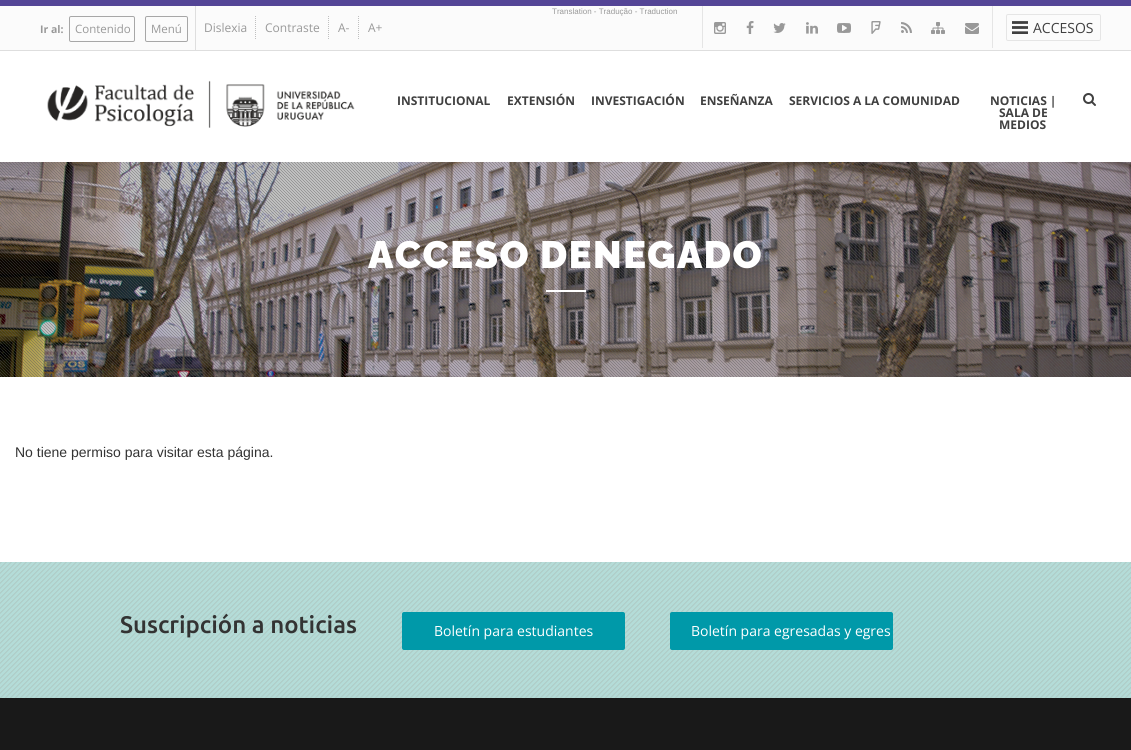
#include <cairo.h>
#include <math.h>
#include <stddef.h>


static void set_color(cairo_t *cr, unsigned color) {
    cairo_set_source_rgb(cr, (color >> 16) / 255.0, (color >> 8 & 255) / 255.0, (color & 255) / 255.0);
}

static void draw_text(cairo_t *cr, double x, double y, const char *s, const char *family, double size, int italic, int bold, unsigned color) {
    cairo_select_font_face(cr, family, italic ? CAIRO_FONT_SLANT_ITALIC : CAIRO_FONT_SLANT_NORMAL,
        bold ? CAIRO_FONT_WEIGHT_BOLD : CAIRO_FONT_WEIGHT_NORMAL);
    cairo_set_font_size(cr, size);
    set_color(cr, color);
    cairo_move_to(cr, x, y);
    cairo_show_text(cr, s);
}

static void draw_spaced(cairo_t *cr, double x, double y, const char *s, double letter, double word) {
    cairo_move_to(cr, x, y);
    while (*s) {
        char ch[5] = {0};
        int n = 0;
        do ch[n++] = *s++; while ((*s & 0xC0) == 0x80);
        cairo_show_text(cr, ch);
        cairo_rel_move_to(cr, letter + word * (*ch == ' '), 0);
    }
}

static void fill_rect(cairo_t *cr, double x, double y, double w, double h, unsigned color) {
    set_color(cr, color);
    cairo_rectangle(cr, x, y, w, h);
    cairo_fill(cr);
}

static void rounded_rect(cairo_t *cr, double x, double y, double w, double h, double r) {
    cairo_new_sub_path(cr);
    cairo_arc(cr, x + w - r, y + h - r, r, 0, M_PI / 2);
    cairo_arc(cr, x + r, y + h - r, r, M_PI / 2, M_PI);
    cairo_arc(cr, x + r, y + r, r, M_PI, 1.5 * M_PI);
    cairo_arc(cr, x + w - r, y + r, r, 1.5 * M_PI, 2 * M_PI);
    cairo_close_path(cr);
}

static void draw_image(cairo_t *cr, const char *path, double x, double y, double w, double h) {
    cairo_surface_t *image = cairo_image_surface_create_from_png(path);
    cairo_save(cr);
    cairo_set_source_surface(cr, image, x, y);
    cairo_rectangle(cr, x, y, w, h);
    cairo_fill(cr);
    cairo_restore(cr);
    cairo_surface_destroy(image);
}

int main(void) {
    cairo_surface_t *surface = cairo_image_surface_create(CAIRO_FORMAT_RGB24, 1131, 750);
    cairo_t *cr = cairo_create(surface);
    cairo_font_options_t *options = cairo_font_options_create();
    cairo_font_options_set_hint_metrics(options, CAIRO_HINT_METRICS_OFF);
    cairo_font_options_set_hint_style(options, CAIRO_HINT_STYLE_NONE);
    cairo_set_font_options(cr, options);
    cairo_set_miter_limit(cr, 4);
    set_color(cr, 0xFFFFFF);
    cairo_paint(cr);
    fill_rect(cr, 0, 0, 1131, 6, 0x544596);
    fill_rect(cr, 0, 6, 1131, 44, 0xFBFBFB);
    fill_rect(cr, 0, 50, 1131, 1, 0xDEDEDE);
    draw_text(cr, 552, 14, "Translation - Tradução - Traduction", "Liberation Sans", 8, 0, 0, 0x999999);
    fill_rect(cr, 195, 6, 1, 44, 0xDEDEDE);
    draw_text(cr, 40, 33, "Ir al:", "Open Sans", 10.5, 0, 1, 0x999999);
    rounded_rect(cr, 69.5, 16.5, 65, 25, 1.5);
    set_color(cr, 0xA7A7A7);
    cairo_set_line_width(cr, 1);
    cairo_stroke(cr);
    draw_text(cr, 75, 33, "Contenido", "Open Sans", 11.5, 0, 0, 0x999999);
    rounded_rect(cr, 145.5, 16.5, 42, 25, 1.5);
    set_color(cr, 0xA7A7A7);
    cairo_stroke(cr);
    draw_text(cr, 151, 33, "Menú", "Open Sans", 11.5, 0, 0, 0x999999);
    draw_text(cr, 204, 32, "Dislexia", "Open Sans", 12, 0, 0, 0x999999);
    cairo_new_path(cr);
    cairo_move_to(cr, 255.5, 16);
    cairo_line_to(cr, 255.5, 40);
    set_color(cr, 0xC0C0C0);
    cairo_set_dash(cr, (double[]){1, 1}, 2, 0);
    cairo_stroke(cr);
    draw_text(cr, 265, 32, "Contraste", "Open Sans", 12, 0, 0, 0x999999);
    cairo_new_path(cr);
    cairo_move_to(cr, 328.5, 16);
    cairo_line_to(cr, 328.5, 40);
    set_color(cr, 0xC0C0C0);
    cairo_stroke(cr);
    draw_text(cr, 338, 32, "A-", "Open Sans", 12, 0, 0, 0x999999);
    cairo_new_path(cr);
    cairo_move_to(cr, 358.5, 16);
    cairo_line_to(cr, 358.5, 40);
    set_color(cr, 0xC0C0C0);
    cairo_stroke(cr);
    draw_text(cr, 368, 32, "A+", "Open Sans", 12, 0, 0, 0x999999);
    fill_rect(cr, 992, 6, 1, 42, 0xE5E5E5);
    fill_rect(cr, 702, 6, 1, 42, 0xE5E5E5);
    draw_image(cr, "assets/img1.png", 714, 22, 12, 12);
    draw_image(cr, "assets/img2.png", 746, 21, 8, 13);
    draw_image(cr, "assets/img3.png", 773, 23, 13, 10);
    draw_image(cr, "assets/img4.png", 806, 22, 12, 12);
    draw_image(cr, "assets/img5.png", 837, 23, 14, 10);
    draw_image(cr, "assets/img6.png", 871, 21, 10, 13);
    draw_image(cr, "assets/img7.png", 901, 22, 11, 11);
    draw_image(cr, "assets/img8.png", 931, 22, 14, 12);
    draw_image(cr, "assets/img9.png", 965, 23, 14, 11);
    draw_image(cr, "assets/img10.png", 1012, 21, 16, 13);
    rounded_rect(cr, 1006.5, 14.5, 94, 26, 1.5);
    cairo_set_dash(cr, NULL, 0, 0);
    cairo_stroke(cr);
    draw_text(cr, 1033, 33, "ACCESOS", "Open Sans", 14, 0, 0, 0x404040);
    draw_image(cr, "assets/img11.png", 47, 80, 308, 48);
    draw_text(cr, 397, 105, "INSTITUCIONAL", "Open Sans", 12, 0, 1, 0x404040);
    draw_text(cr, 507, 105, "EXTENSIÓN", "Open Sans", 12, 0, 1, 0x404040);
    draw_text(cr, 591, 105, "INVESTIGACIÓN", "Open Sans", 12, 0, 1, 0x404040);
    draw_text(cr, 700, 105, "ENSEÑANZA", "Open Sans", 12, 0, 1, 0x404040);
    draw_text(cr, 789, 105, "SERVICIOS A LA COMUNIDAD", "Open Sans", 12, 0, 1, 0x404040);
    draw_text(cr, 990, 105, "NOTICIAS |", "Open Sans", 12, 0, 1, 0x404040);
    draw_text(cr, 999, 117, "SALA DE", "Open Sans", 12, 0, 1, 0x404040);
    draw_text(cr, 999, 129, "MEDIOS", "Open Sans", 12, 0, 1, 0x404040);
    draw_image(cr, "assets/img12.png", 1083, 93, 13, 13);
    draw_image(cr, "assets/img13.png", 0, 162, 1131, 215);
    draw_image(cr, "assets/img14.png", 0, 162, 1131, 215);
    fill_rect(cr, 546, 290, 40, 2, 0xFFFFFF);
    cairo_select_font_face(cr, "Raleway Black", CAIRO_FONT_SLANT_NORMAL, CAIRO_FONT_WEIGHT_NORMAL);
    cairo_set_font_size(cr, 38);
    draw_spaced(cr, 368, 268, "ACCESO DENEGADO", 1.5, 0);
    draw_text(cr, 15, 457, "No tiene permiso para visitar esta página.", "Liberation Sans", 14, 0, 0, 0x333333);
    fill_rect(cr, 0, 562, 1131, 136, 0xB4DCD8);
    draw_image(cr, "assets/img15.png", 0, 562, 1131, 136);
    draw_text(cr, 120, 633, "Suscripción a noticias", "Ubuntu Medium", 24, 0, 0, 0x333333);
    set_color(cr, 0x0099A9);
    rounded_rect(cr, 402, 612, 223, 38, 2);
    cairo_fill(cr);
    draw_text(cr, 434, 636, "Boletín para estudiantes", "Open Sans", 14, 0, 0, 0xFFFFFF);
    set_color(cr, 0x0099A9);
    rounded_rect(cr, 670, 612, 223, 38, 2);
    cairo_fill(cr);
    draw_text(cr, 691, 636, "Boletín para egresadas y egres", "Open Sans", 14, 0, 0, 0xFFFFFF);
    fill_rect(cr, 0, 698, 1131, 52, 0x191919);
    cairo_surface_write_to_png(surface, "output.png");
    cairo_font_options_destroy(options);
    cairo_destroy(cr);
    cairo_surface_destroy(surface);
    return 0;
}
